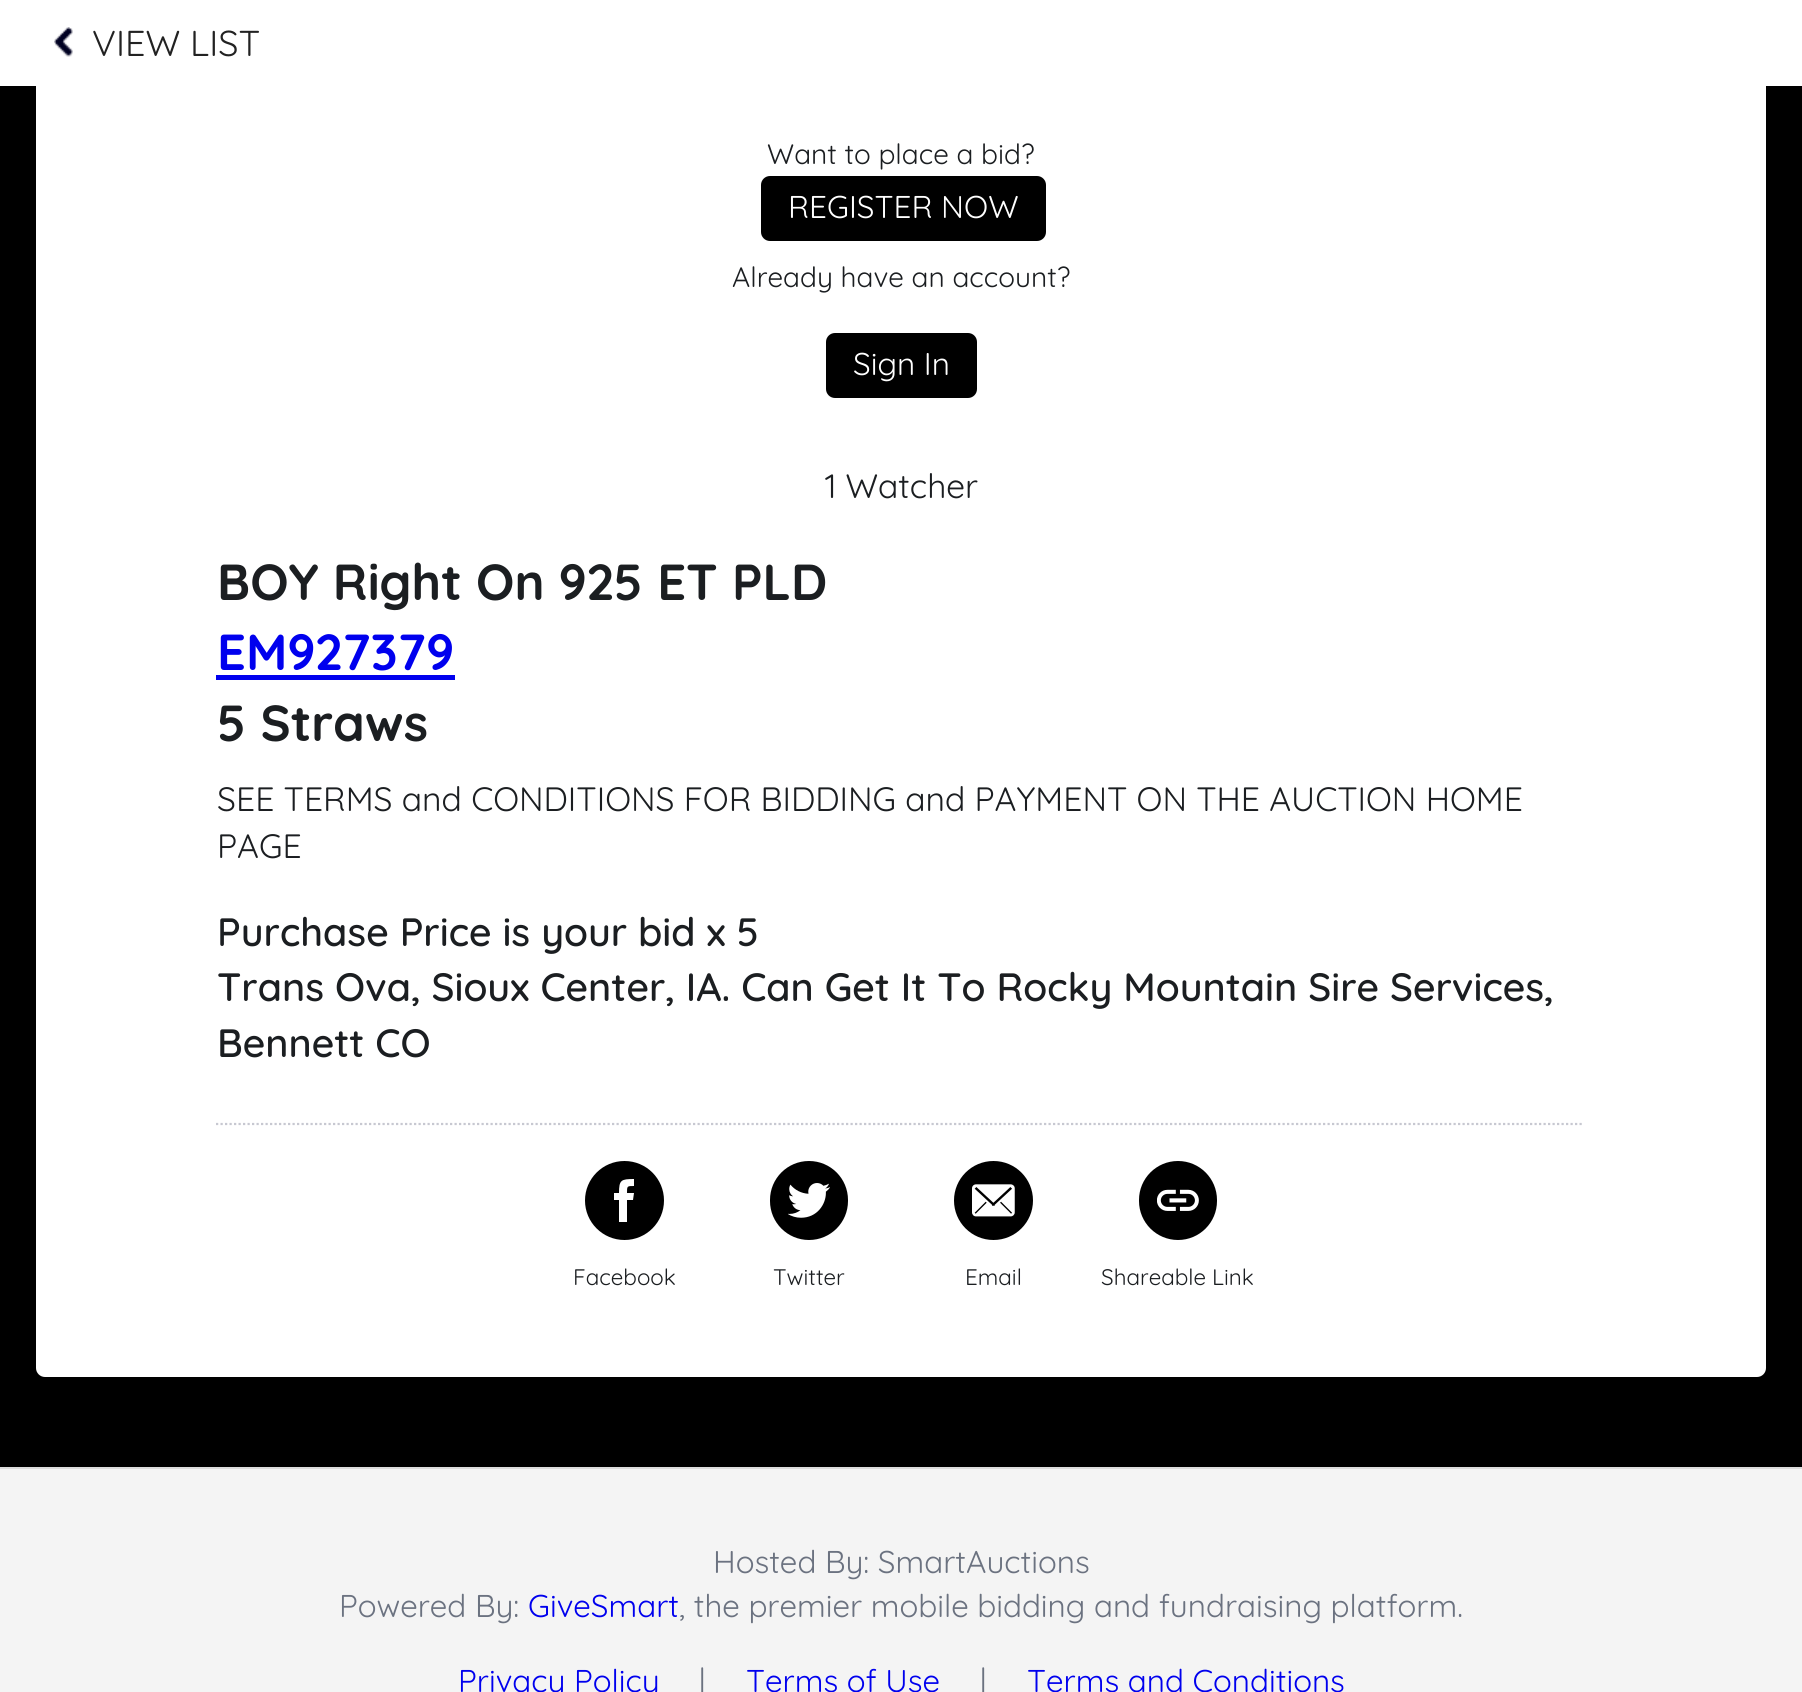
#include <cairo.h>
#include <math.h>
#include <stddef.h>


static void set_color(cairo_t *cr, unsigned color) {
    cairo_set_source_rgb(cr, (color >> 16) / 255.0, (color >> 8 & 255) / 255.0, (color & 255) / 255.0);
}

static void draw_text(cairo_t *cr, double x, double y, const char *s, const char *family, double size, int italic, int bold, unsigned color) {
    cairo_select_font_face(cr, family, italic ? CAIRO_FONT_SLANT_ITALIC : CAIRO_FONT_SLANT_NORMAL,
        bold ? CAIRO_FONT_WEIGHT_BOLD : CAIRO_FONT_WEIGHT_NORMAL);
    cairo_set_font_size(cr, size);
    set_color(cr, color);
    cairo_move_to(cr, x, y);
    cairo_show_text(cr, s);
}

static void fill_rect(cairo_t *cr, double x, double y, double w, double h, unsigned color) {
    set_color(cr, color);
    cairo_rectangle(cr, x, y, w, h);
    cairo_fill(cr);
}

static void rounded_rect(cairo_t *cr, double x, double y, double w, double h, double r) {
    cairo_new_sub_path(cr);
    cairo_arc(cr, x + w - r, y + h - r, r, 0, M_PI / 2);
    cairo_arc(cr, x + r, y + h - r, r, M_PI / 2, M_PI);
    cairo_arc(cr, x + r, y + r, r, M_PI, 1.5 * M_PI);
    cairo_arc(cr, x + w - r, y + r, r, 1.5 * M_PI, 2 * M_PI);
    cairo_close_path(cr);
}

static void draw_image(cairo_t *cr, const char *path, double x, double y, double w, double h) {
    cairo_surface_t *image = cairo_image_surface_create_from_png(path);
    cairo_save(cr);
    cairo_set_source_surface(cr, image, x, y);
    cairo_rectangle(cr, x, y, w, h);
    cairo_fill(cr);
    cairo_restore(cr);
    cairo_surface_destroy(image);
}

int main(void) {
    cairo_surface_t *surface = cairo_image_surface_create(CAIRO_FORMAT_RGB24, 1802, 1692);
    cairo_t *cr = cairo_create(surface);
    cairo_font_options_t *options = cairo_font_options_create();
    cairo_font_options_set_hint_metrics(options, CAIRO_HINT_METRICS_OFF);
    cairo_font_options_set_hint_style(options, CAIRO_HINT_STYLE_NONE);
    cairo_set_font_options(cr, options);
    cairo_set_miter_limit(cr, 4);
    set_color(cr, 0x000000);
    cairo_paint(cr);
    set_color(cr, 0xFFFFFF);
    rounded_rect(cr, 36, -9, 1730, 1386, 9);
    cairo_fill(cr);
    fill_rect(cr, 0, 0, 1802, 86, 0xFFFFFF);
    draw_image(cr, "assets/img1.png", 54, 27, 19, 30);
    draw_text(cr, 92, 56, "VIEW LIST", "Quicksand", 36, 0, 0, 0x222222);
    draw_text(cr, 767, 164, "Want to place a bid?", "Quicksand", 28.1, 0, 0, 0x1B1E21);
    set_color(cr, 0x000000);
    rounded_rect(cr, 761, 176, 285, 65, 9);
    cairo_fill(cr);
    draw_text(cr, 788, 218, "REGISTER NOW", "Quicksand", 31.5, 0, 0, 0xFFFFFF);
    draw_text(cr, 732, 287, "Already have an account?", "Quicksand", 28.1, 0, 0, 0x1B1E21);
    set_color(cr, 0x000000);
    rounded_rect(cr, 826, 333, 151, 65, 9);
    cairo_fill(cr);
    draw_text(cr, 853, 375, "Sign In", "Quicksand", 31.5, 0, 0, 0xFFFFFF);
    draw_text(cr, 825, 498, "1 Watcher", "Quicksand", 33.75, 0, 0, 0x1B1E21);
    cairo_new_path(cr);
    cairo_move_to(cr, 216, 1124);
    cairo_line_to(cr, 1584, 1124);
    set_color(cr, 0xC7C8D1);
    cairo_set_line_width(cr, 2.2);
    cairo_set_dash(cr, (double[]){2.25, 2.25}, 2, 0);
    cairo_stroke(cr);
    draw_text(cr, 217, 600, "BOY Right On 925 ET PLD", "Quicksand", 50.6, 0, 1, 0x1B1E21);
    draw_text(cr, 217, 670, "EM927379", "Quicksand", 50.6, 0, 1, 0x0000EE);
    fill_rect(cr, 216, 675, 239, 5, 0x0000EE);
    draw_text(cr, 217, 741, "5 Straws", "Quicksand", 50.6, 0, 1, 0x1B1E21);
    draw_text(cr, 217, 811, "SEE TERMS and CONDITIONS FOR BIDDING and PAYMENT ON THE AUCTION HOME", "Quicksand", 33.75, 0, 0, 0x1B1E21);
    draw_text(cr, 217, 858, "PAGE", "Quicksand", 33.75, 0, 0, 0x1B1E21);
    draw_text(cr, 217, 946, "Purchase Price is your bid x 5", "Quicksand Medium", 39.5, 0, 0, 0x1B1E21);
    draw_text(cr, 217, 1001, "Trans Ova, Sioux Center, IA. Can Get It To Rocky Mountain Sire Services,", "Quicksand Medium", 39.5, 0, 0, 0x1B1E21);
    draw_text(cr, 217, 1057, "Bennett CO", "Quicksand Medium", 39.5, 0, 0, 0x1B1E21);
    set_color(cr, 0x000000);
    cairo_new_path(cr);
    cairo_arc(cr, 624.5, 1200.5, 39.5, 0, 2 * M_PI);
    cairo_fill(cr);
    set_color(cr, 0xFFFFFF);
    cairo_new_path(cr);
    cairo_move_to(cr, 627, 1222);
    cairo_line_to(cr, 619, 1222);
    cairo_line_to(cr, 619, 1200);
    cairo_line_to(cr, 614, 1200);
    cairo_line_to(cr, 614, 1193);
    cairo_line_to(cr, 619, 1193);
    cairo_curve_to(cr, 619, 1180, 621, 1179, 634, 1179);
    cairo_line_to(cr, 634, 1186);
    cairo_curve_to(cr, 627, 1186, 627, 1186, 627, 1193);
    cairo_line_to(cr, 634, 1193);
    cairo_line_to(cr, 633, 1200);
    cairo_line_to(cr, 627, 1200);
    cairo_close_path(cr);
    cairo_fill(cr);
    draw_text(cr, 573, 1285, "Facebook", "Quicksand", 22.5, 0, 0, 0x1B1E21);
    set_color(cr, 0x000000);
    rounded_rect(cr, 770, 1161, 78, 79, 39);
    cairo_fill(cr);
    draw_image(cr, "assets/img2.png", 788, 1183, 42, 35);
    draw_text(cr, 773, 1285, "Twitter", "Quicksand", 22.5, 0, 0, 0x1B1E21);
    set_color(cr, 0x000000);
    cairo_new_path(cr);
    cairo_arc(cr, 993.5, 1200.5, 39.5, 0, 2 * M_PI);
    cairo_fill(cr);
    draw_image(cr, "assets/img3.png", 972, 1184, 43, 33);
    draw_text(cr, 965, 1285, "Email", "Quicksand", 22.5, 0, 0, 0x1B1E21);
    set_color(cr, 0x000000);
    rounded_rect(cr, 1139, 1161, 78, 79, 39);
    cairo_fill(cr);
    draw_image(cr, "assets/img4.png", 1157, 1189, 42, 22);
    draw_text(cr, 1101, 1285, "Shareable Link", "Quicksand", 22.5, 0, 0, 0x1B1E21);
    fill_rect(cr, 0, 1469, 1802, 223, 0xF4F4F4);
    fill_rect(cr, 0, 1467, 1802, 2, 0xDCDCDC);
    draw_text(cr, 713, 1573, "Hosted By: SmartAuctions", "Quicksand", 31.5, 0, 0, 0x6B7280);
    draw_text(cr, 339, 1617, "Powered By:", "Quicksand", 31.5, 0, 0, 0x6B7280);
    draw_text(cr, 528, 1617, "GiveSmart", "Quicksand", 31.5, 0, 0, 0x0000EE);
    draw_text(cr, 679, 1617, ", the premier mobile bidding and fundraising platform.", "Quicksand", 31.5, 0, 0, 0x6B7280);
    draw_text(cr, 458, 1692, "Privacy Policy", "Quicksand", 31.5, 0, 0, 0x0000EE);
    draw_text(cr, 699, 1692, "|", "Quicksand", 31.5, 0, 0, 0x6B7280);
    draw_text(cr, 746, 1692, "Terms of Use", "Quicksand", 31.5, 0, 0, 0x0000EE);
    draw_text(cr, 980, 1692, "|", "Quicksand", 31.5, 0, 0, 0x6B7280);
    draw_text(cr, 1027, 1692, "Terms and Conditions", "Quicksand", 31.5, 0, 0, 0x0000EE);
    cairo_surface_write_to_png(surface, "output.png");
    cairo_font_options_destroy(options);
    cairo_destroy(cr);
    cairo_surface_destroy(surface);
    return 0;
}
